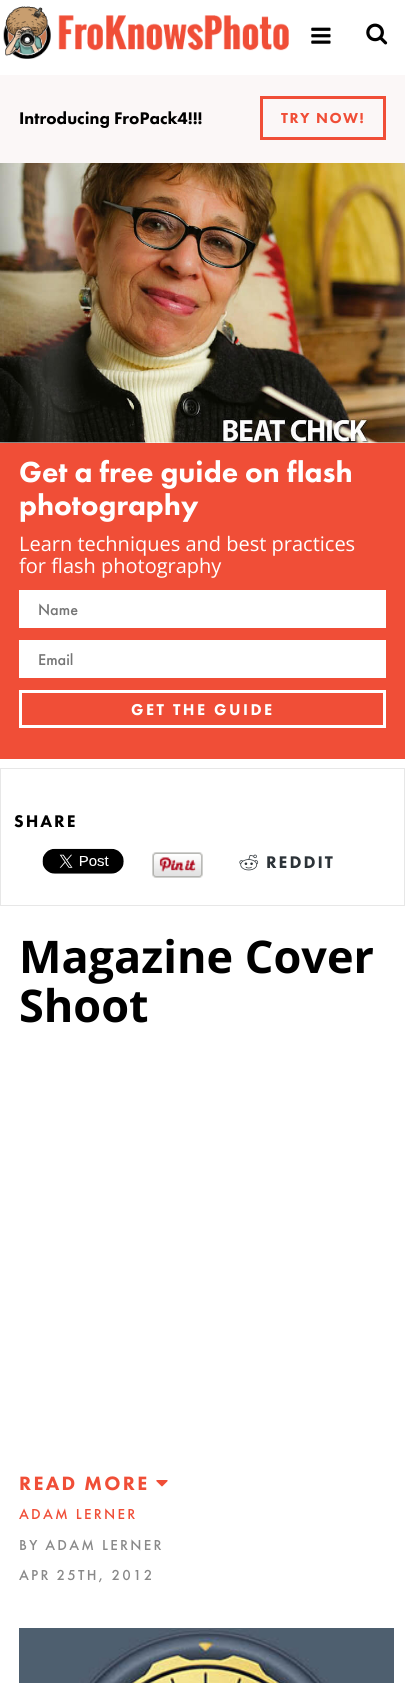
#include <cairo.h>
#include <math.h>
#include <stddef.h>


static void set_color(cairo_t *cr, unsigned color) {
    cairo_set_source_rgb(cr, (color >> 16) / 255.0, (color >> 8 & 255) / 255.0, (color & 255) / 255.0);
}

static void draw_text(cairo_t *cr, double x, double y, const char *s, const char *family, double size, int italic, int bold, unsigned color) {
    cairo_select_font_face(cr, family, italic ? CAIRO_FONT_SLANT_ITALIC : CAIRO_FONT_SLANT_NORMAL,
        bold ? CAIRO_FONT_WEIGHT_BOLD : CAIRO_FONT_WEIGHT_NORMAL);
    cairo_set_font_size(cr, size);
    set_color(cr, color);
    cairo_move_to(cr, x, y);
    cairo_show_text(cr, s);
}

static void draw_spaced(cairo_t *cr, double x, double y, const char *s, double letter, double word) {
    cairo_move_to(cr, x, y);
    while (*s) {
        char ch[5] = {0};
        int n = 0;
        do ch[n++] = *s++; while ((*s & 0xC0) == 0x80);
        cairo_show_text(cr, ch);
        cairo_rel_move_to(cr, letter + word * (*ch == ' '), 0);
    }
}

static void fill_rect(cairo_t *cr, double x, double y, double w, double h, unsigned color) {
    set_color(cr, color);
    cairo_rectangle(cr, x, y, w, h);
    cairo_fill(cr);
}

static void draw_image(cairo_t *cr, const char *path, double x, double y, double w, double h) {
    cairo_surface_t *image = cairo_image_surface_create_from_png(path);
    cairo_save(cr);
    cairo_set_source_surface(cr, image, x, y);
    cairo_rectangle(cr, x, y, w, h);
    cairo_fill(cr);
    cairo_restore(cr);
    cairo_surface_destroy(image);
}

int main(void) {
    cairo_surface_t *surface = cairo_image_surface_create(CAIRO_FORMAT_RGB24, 405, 1683);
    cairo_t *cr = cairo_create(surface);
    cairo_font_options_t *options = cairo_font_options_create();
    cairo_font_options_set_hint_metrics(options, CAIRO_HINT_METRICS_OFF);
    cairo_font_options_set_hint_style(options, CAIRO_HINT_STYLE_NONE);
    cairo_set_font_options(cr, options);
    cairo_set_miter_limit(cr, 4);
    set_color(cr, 0xFFFFFF);
    cairo_paint(cr);
    draw_image(cr, "assets/img1.png", 3, 6, 286, 53);
    draw_image(cr, "assets/img2.png", 366, 23, 22, 22);
    draw_image(cr, "assets/img3.png", 311, 27, 20, 17);
    fill_rect(cr, 0, 75, 405, 88, 0xFBF7F7);
    draw_text(cr, 19, 124, "Introducing FroPack4!!!", "Futura PT Black", 17.5, 0, 0, 0x000000);
    cairo_rectangle(cr, 261.5, 97.5, 123, 41);
    set_color(cr, 0xF04E37);
    cairo_set_line_width(cr, 3);
    cairo_stroke(cr);
    cairo_set_font_size(cr, 15);
    draw_spaced(cr, 281, 123, "TRY NOW!", 1.5, 0);
    draw_image(cr, "assets/img4.png", 0, 163, 405, 280);
    fill_rect(cr, 0, 443, 405, 316, 0xF04E37);
    draw_text(cr, 19, 482, "Get a free guide on flash", "Futura PT Black", 30, 0, 0, 0xFFFFFF);
    draw_text(cr, 19, 515, "photography", "Futura PT Black", 30, 0, 0, 0xFFFFFF);
    draw_text(cr, 19, 551, "Learn techniques and best practices", "Open Sans", 20, 0, 0, 0xFFFFFF);
    draw_text(cr, 19, 573, "for flash photography", "Open Sans", 20, 0, 0, 0xFFFFFF);
    fill_rect(cr, 19, 590, 367, 38, 0xFFFFFF);
    draw_text(cr, 38, 615, "Name", "Futura PT Medium", 16.25, 0, 0, 0x757575);
    fill_rect(cr, 19, 640, 367, 38, 0xFFFFFF);
    draw_text(cr, 38, 665, "Email", "Futura PT Medium", 16.25, 0, 0, 0x757575);
    cairo_rectangle(cr, 20.5, 691.5, 364, 35);
    set_color(cr, 0xFFFFFF);
    cairo_stroke(cr);
    cairo_select_font_face(cr, "Futura PT Black", CAIRO_FONT_SLANT_NORMAL, CAIRO_FONT_WEIGHT_NORMAL);
    draw_spaced(cr, 131, 715, "GET THE GUIDE", 2.5, 0);
    cairo_rectangle(cr, 0.5, 768.5, 404, 137);
    set_color(cr, 0xE7E7E7);
    cairo_set_line_width(cr, 1);
    cairo_stroke(cr);
    cairo_set_font_size(cr, 17.5);
    set_color(cr, 0x000000);
    draw_spaced(cr, 14, 827, "SHARE", 2, 0);
    draw_image(cr, "assets/img5.png", 42, 848, 82, 26);
    draw_image(cr, "assets/img6.png", 152, 852, 51, 26);
    draw_image(cr, "assets/img7.png", 239, 854, 20, 17);
    set_color(cr, 0x2C3338);
    draw_spaced(cr, 266, 868, "REDDIT", 2, 0);
    draw_text(cr, 19, 973, "Magazine Cover", "Open Sans", 45, 0, 1, 0x000000);
    draw_text(cr, 19, 1022, "Shoot", "Open Sans", 45, 0, 1, 0x000000);
    cairo_select_font_face(cr, "Futura PT Black", CAIRO_FONT_SLANT_NORMAL, CAIRO_FONT_WEIGHT_NORMAL);
    cairo_set_font_size(cr, 20);
    set_color(cr, 0xF04E37);
    draw_spaced(cr, 19, 1490, "READ MORE", 2.25, 0);
    draw_image(cr, "assets/img8.png", 156, 1480, 12, 7);
    cairo_select_font_face(cr, "Futura PT Medium", CAIRO_FONT_SLANT_NORMAL, CAIRO_FONT_WEIGHT_NORMAL);
    cairo_set_font_size(cr, 15);
    draw_spaced(cr, 19, 1519, "ADAM LERNER", 2.25, 0);
    set_color(cr, 0x898989);
    draw_spaced(cr, 19, 1550, "BY ADAM LERNER", 2.25, 0);
    draw_spaced(cr, 19, 1580, "APR 25TH, 2012", 2.25, 0);
    draw_image(cr, "assets/img9.png", 19, 1628, 375, 55);
    cairo_surface_write_to_png(surface, "output.png");
    cairo_font_options_destroy(options);
    cairo_destroy(cr);
    cairo_surface_destroy(surface);
    return 0;
}
